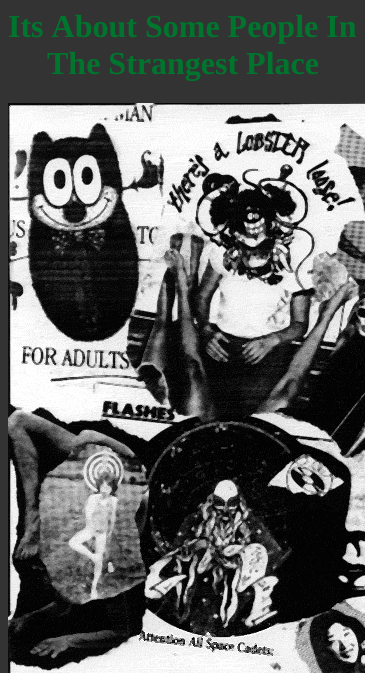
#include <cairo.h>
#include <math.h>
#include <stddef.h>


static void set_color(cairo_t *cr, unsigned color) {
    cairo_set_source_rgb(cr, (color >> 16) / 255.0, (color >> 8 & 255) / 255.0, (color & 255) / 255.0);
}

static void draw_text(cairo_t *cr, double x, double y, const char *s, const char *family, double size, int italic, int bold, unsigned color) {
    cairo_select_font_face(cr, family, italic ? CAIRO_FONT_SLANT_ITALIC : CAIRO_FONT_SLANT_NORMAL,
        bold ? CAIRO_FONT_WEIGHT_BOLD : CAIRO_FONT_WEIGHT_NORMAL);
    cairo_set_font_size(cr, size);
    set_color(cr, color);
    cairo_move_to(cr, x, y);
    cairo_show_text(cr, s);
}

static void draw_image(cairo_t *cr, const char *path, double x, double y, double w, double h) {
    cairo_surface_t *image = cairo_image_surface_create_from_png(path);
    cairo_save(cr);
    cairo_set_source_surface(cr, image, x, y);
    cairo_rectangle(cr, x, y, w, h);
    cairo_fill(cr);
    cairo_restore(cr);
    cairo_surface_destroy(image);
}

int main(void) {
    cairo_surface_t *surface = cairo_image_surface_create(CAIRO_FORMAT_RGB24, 365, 673);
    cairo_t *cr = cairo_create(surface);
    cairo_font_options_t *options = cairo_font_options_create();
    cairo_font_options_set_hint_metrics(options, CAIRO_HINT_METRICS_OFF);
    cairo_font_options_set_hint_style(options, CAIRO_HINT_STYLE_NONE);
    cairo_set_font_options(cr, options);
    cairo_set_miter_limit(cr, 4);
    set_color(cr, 0x333333);
    cairo_paint(cr);
    draw_text(cr, 8, 37, "Its About Some People In", "Liberation Serif", 32, 0, 1, 0x00752E);
    draw_text(cr, 47, 74, "The Strangest Place", "Liberation Serif", 32, 0, 1, 0x00752E);
    draw_image(cr, "assets/img1.png", 8, 103, 357, 570);
    cairo_surface_write_to_png(surface, "output.png");
    cairo_font_options_destroy(options);
    cairo_destroy(cr);
    cairo_surface_destroy(surface);
    return 0;
}
